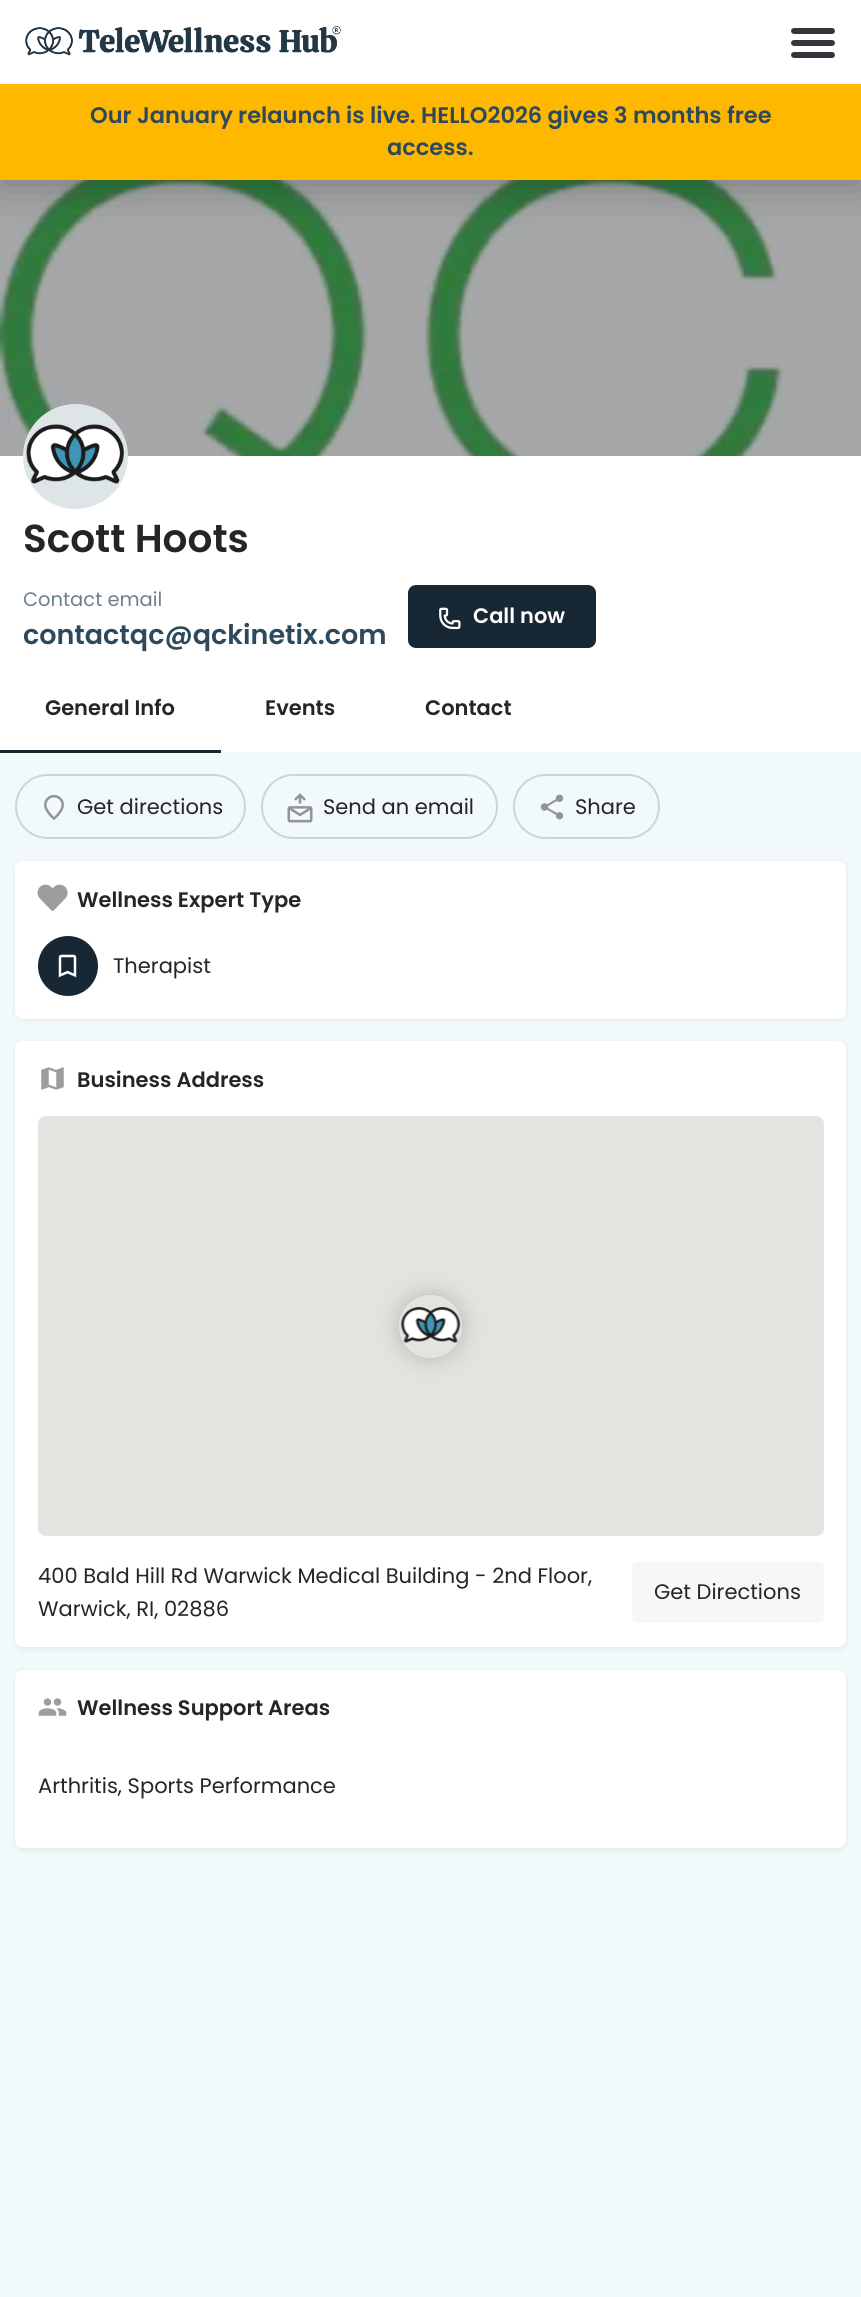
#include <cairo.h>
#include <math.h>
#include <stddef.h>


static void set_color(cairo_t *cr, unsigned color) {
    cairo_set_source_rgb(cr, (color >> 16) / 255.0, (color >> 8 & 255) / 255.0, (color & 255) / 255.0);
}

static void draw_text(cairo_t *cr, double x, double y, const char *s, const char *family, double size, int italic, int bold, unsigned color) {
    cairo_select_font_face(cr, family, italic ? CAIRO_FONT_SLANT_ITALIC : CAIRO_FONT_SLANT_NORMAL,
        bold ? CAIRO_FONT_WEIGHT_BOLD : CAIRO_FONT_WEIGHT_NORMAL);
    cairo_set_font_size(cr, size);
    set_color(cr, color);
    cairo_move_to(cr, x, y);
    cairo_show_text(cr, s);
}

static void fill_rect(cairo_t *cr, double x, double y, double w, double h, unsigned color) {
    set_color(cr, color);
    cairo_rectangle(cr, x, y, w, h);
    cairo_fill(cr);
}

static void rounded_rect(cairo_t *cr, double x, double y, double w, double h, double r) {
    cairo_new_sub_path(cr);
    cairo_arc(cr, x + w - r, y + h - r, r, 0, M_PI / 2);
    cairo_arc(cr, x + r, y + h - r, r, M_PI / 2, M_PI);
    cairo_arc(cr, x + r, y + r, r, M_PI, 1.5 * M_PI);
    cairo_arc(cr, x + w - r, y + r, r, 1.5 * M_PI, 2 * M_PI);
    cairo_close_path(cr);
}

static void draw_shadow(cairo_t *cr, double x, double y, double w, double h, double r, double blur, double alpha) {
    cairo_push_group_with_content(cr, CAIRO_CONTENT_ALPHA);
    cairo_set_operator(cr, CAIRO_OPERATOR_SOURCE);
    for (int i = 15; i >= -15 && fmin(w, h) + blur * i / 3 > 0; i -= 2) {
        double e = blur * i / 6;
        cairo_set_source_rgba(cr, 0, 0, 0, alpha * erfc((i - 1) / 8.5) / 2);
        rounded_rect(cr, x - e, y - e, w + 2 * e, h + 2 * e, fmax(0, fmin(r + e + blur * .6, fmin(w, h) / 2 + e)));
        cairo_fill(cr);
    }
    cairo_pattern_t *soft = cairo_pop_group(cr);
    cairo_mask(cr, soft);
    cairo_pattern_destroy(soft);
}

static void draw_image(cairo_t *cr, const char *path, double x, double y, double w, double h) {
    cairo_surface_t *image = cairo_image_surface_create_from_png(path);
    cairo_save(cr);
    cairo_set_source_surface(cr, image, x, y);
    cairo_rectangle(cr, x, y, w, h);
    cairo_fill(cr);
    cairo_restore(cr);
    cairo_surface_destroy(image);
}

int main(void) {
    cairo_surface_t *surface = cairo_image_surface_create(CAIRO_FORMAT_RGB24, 861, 2297);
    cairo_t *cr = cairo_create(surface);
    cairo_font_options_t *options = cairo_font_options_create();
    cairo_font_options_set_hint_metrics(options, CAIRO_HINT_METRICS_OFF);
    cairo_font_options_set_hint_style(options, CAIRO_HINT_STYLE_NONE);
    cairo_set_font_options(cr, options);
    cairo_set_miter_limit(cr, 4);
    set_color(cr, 0xF1F9FA);
    cairo_paint(cr);
    draw_image(cr, "assets/img3.png", 0, 180, 861, 276);
    set_color(cr, 0x000000);
    draw_shadow(cr, 0, 84, 861, 99, 0, 22.5, 0.3);
    fill_rect(cr, 0, 0, 861, 84, 0xFFFFFF);
    draw_image(cr, "assets/img1.png", 25, 26, 316, 30);
    draw_image(cr, "assets/img2.png", 791, 28, 44, 30);
    fill_rect(cr, 0, 84, 861, 96, 0xFFB800);
    draw_text(cr, 90, 123, "Our January relaunch is live. HELLO2026 gives 3 months free", "Poppins SemiBold", 22.5, 0, 0, 0x2E495C);
    draw_text(cr, 387, 155, "access.", "Poppins SemiBold", 22.5, 0, 0, 0x2E495C);
    fill_rect(cr, 0, 456, 861, 296, 0xFFFFFF);
    set_color(cr, 0xDDE5E6);
    cairo_new_path(cr);
    cairo_arc(cr, 75.5, 456.5, 52.5, 0, 2 * M_PI);
    cairo_fill(cr);
    draw_image(cr, "assets/img4.png", 26, 424, 98, 60);
    draw_text(cr, 23, 552, "Scott Hoots", "Poppins SemiBold", 39, 0, 0, 0x242429);
    draw_text(cr, 23, 606, "Contact email", "Poppins", 19.5, 0, 0, 0x6D808D);
    draw_text(cr, 23, 644, "contactqc@qckinetix.com", "Poppins SemiBold", 27, 0, 0, 0x2E495C);
    set_color(cr, 0x182734);
    rounded_rect(cr, 408, 585, 188, 63, 8);
    cairo_fill(cr);
    draw_image(cr, "assets/img5.png", 439, 607, 22, 23);
    draw_text(cr, 473, 623, "Call now", "Poppins SemiBold", 21, 0, 0, 0xFFFFFF);
    draw_text(cr, 45, 715, "General Info", "Poppins SemiBold", 21, 0, 0, 0x242429);
    fill_rect(cr, 0, 750, 221, 3, 0x182734);
    draw_text(cr, 265, 715, "Events", "Poppins SemiBold", 21, 0, 0, 0x242429);
    draw_text(cr, 425, 715, "Contact", "Poppins SemiBold", 21, 0, 0, 0x242429);
    rounded_rect(cr, 16, 775, 229, 63, 31.5);
    set_color(cr, 0xCDD4D5);
    cairo_stroke(cr);
    draw_image(cr, "assets/img6.png", 44, 794, 20, 26);
    draw_text(cr, 77, 814, "Get directions", "Poppins", 21, 0, 0, 0x242429);
    rounded_rect(cr, 262, 775, 235, 63, 31.5);
    set_color(cr, 0xCDD4D5);
    cairo_stroke(cr);
    draw_image(cr, "assets/img7.png", 287, 793, 26, 30);
    draw_text(cr, 323, 814, "Send an email", "Poppins", 21, 0, 0, 0x242429);
    rounded_rect(cr, 514, 775, 145, 63, 31.5);
    set_color(cr, 0xCDD4D5);
    cairo_stroke(cr);
    draw_image(cr, "assets/img8.png", 540, 794, 24, 26);
    draw_text(cr, 575, 814, "Share", "Poppins", 21, 0, 0, 0x242429);
    set_color(cr, 0x000000);
    draw_shadow(cr, 15, 863, 831, 157, 8, 3, 0.07);
    set_color(cr, 0xFFFFFF);
    rounded_rect(cr, 15, 861, 831, 158, 8);
    cairo_fill(cr);
    draw_image(cr, "assets/img9.png", 37, 884, 31, 27);
    draw_text(cr, 77, 907, "Wellness Expert Type", "Poppins SemiBold", 21, 0, 0, 0x242429);
    set_color(cr, 0x182734);
    cairo_new_path(cr);
    cairo_arc(cr, 68, 966, 30, 0, 2 * M_PI);
    cairo_fill(cr);
    draw_image(cr, "assets/img10.png", 58, 954, 19, 24);
    draw_text(cr, 113, 973, "Therapist", "Poppins", 21, 0, 0, 0x242429);
    set_color(cr, 0x000000);
    draw_shadow(cr, 15, 1043, 831, 606, 8, 3, 0.07);
    set_color(cr, 0xFFFFFF);
    rounded_rect(cr, 15, 1041, 831, 606, 8);
    cairo_fill(cr);
    draw_image(cr, "assets/img11.png", 41, 1067, 23, 23);
    draw_text(cr, 77, 1087, "Business Address", "Poppins SemiBold", 21, 0, 0, 0x242429);
    set_color(cr, 0xE5E3DF);
    rounded_rect(cr, 38, 1116, 786, 420, 8);
    cairo_fill(cr);
    cairo_save(cr);
    cairo_set_fill_rule(cr, CAIRO_FILL_RULE_EVEN_ODD);
    cairo_new_path(cr);
    cairo_move_to(cr, 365, 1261);
    cairo_line_to(cr, 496, 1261);
    cairo_line_to(cr, 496, 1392);
    cairo_line_to(cr, 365, 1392);
    cairo_close_path(cr);
    cairo_move_to(cr, 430.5, 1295);
    cairo_curve_to(cr, 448, 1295, 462, 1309, 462, 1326.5);
    cairo_curve_to(cr, 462, 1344, 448, 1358, 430.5, 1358);
    cairo_curve_to(cr, 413, 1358, 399, 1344, 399, 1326.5);
    cairo_curve_to(cr, 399, 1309, 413, 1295, 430.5, 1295);
    cairo_close_path(cr);
    cairo_clip(cr);
    set_color(cr, 0x000000);
    draw_shadow(cr, 399, 1295, 63, 63, 31.5, 11, 0.2);
    cairo_restore(cr);
    draw_image(cr, "assets/img12.png", 400, 1307, 61, 36);
    draw_text(cr, 38, 1583, "400 Bald Hill Rd Warwick Medical Building - 2nd Floor,", "Poppins", 21, 0, 0, 0x242429);
    draw_text(cr, 38, 1616, "Warwick, RI, 02886", "Poppins", 21, 0, 0, 0x242429);
    set_color(cr, 0xF7F7F7);
    rounded_rect(cr, 632, 1562, 192, 61, 5);
    cairo_fill(cr);
    draw_text(cr, 654, 1599, "Get Directions", "Poppins", 21, 0, 0, 0x242429);
    set_color(cr, 0x000000);
    draw_shadow(cr, 15, 1671, 831, 179, 8, 3, 0.07);
    set_color(cr, 0xFFFFFF);
    rounded_rect(cr, 15, 1670, 831, 178, 8);
    cairo_fill(cr);
    draw_image(cr, "assets/img13.png", 38, 1698, 29, 18);
    draw_text(cr, 77, 1715, "Wellness Support Areas", "Poppins SemiBold", 21, 0, 0, 0x242429);
    draw_text(cr, 38, 1793, "Arthritis, Sports Performance", "Poppins", 21, 0, 0, 0x242429);
    cairo_surface_write_to_png(surface, "output.png");
    cairo_font_options_destroy(options);
    cairo_destroy(cr);
    cairo_surface_destroy(surface);
    return 0;
}
